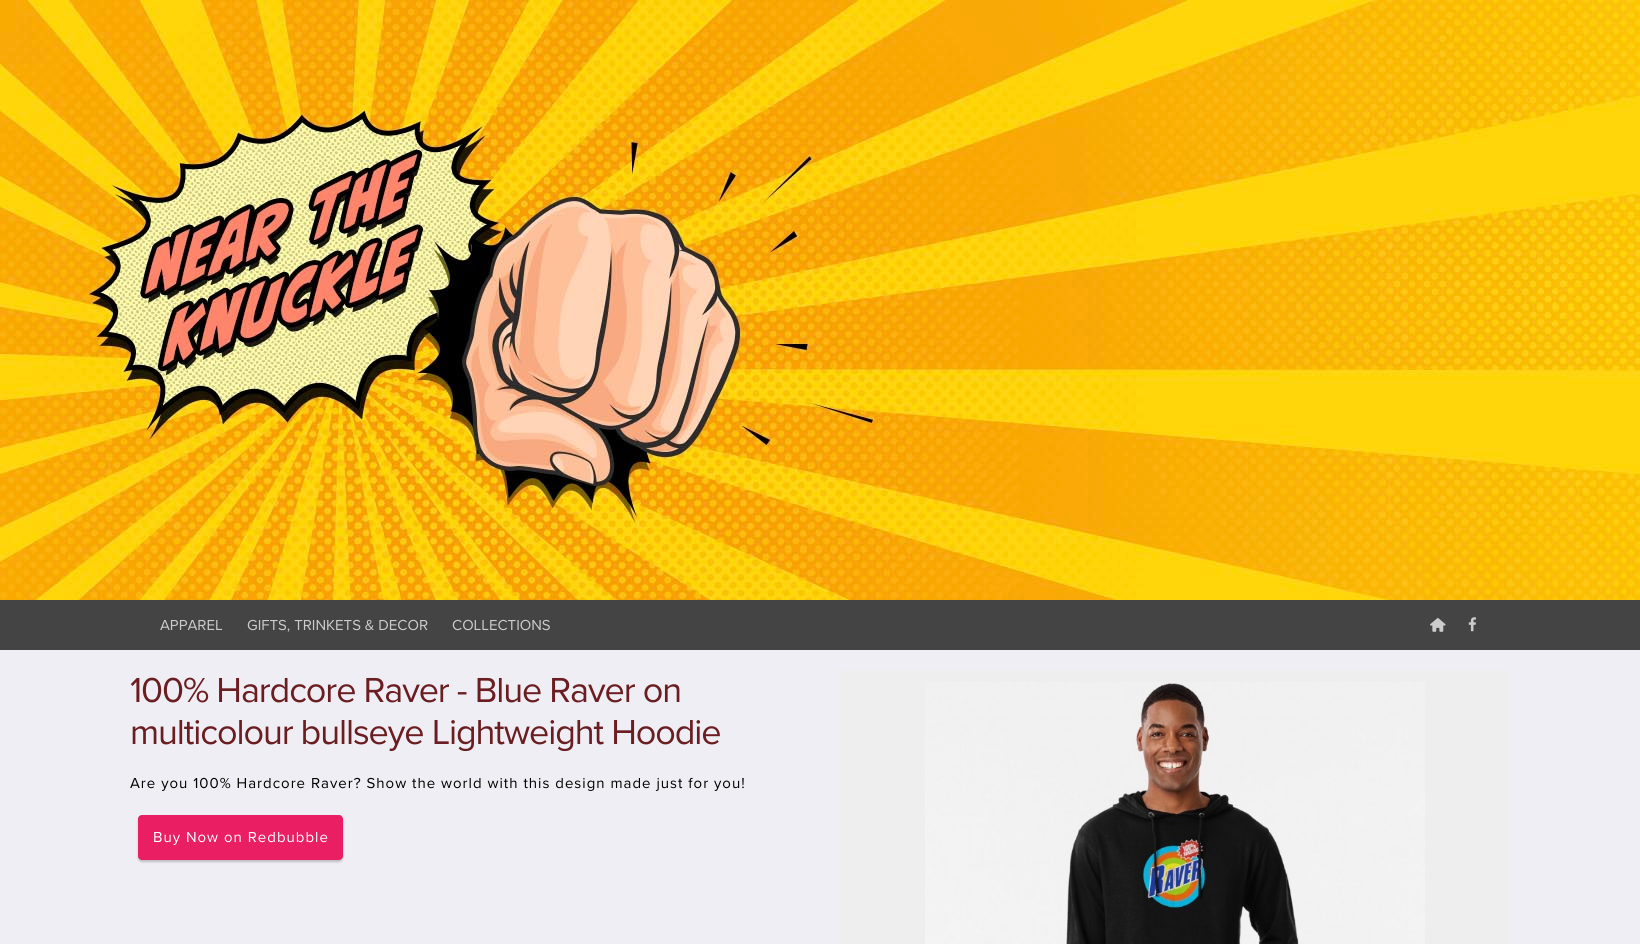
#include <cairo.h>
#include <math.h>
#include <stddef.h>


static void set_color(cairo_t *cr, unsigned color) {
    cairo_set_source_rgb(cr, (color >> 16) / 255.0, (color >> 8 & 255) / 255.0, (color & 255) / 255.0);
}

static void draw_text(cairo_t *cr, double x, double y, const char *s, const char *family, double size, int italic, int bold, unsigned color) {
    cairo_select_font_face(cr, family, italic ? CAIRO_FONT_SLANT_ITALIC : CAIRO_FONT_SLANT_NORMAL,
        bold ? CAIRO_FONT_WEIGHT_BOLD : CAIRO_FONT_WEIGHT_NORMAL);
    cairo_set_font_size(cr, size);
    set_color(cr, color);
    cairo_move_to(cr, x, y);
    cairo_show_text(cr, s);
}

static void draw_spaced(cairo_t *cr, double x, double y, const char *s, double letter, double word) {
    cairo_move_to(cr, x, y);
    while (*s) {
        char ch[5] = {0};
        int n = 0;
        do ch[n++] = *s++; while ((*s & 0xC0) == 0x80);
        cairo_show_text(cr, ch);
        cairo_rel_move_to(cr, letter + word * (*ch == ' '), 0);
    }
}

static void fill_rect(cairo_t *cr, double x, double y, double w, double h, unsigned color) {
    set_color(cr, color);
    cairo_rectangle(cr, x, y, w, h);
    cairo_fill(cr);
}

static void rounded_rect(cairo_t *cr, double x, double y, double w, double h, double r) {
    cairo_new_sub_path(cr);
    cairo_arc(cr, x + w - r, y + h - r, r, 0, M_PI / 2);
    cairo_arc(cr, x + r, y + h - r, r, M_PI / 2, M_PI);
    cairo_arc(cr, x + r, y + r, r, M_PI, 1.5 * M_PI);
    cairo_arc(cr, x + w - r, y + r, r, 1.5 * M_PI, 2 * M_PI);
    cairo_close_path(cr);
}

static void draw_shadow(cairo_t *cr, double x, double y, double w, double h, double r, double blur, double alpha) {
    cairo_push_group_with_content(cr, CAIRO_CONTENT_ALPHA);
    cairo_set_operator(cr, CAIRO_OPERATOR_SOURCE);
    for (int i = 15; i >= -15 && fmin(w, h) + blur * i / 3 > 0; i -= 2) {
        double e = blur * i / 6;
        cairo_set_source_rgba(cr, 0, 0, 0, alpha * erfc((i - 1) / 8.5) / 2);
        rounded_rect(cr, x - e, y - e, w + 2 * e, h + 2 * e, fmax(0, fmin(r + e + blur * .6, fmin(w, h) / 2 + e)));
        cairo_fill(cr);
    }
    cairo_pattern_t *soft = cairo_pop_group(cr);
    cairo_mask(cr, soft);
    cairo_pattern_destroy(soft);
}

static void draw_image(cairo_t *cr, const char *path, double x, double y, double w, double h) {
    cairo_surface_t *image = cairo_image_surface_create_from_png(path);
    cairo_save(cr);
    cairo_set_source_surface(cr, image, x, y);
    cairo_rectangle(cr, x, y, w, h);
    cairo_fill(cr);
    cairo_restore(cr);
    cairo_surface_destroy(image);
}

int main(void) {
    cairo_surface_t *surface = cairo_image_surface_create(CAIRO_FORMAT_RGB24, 1640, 944);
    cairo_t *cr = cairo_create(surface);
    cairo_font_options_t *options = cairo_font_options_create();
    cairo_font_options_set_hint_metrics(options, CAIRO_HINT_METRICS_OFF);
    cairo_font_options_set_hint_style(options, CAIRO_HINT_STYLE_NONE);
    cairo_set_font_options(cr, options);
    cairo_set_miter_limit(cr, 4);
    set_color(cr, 0xEEEEF4);
    cairo_paint(cr);
    draw_image(cr, "assets/img1.png", 0, 0, 1640, 600);
    fill_rect(cr, 0, 600, 1640, 50, 0x444444);
    draw_text(cr, 160, 630, "APPAREL", "Proxima Nova", 15, 0, 0, 0xCCCCCC);
    draw_text(cr, 247, 630, "GIFTS, TRINKETS & DECOR", "Proxima Nova", 15, 0, 0, 0xCCCCCC);
    draw_text(cr, 452, 630, "COLLECTIONS", "Proxima Nova", 15, 0, 0, 0xCCCCCC);
    draw_image(cr, "assets/img2.png", 1430, 617, 16, 15);
    draw_image(cr, "assets/img3.png", 1468, 617, 8, 15);
    cairo_set_font_size(cr, 36);
    set_color(cr, 0x6B1E21);
    draw_spaced(cr, 130, 702, "100% Hardcore Raver - Blue Raver on", -1.1, 0);
    draw_spaced(cr, 130, 744, "multicolour bullseye Lightweight Hoodie", -1.1, 0);
    fill_rect(cr, 840, 670, 670, 274, 0xEEEEEE);
    draw_image(cr, "assets/img4.png", 925, 682, 500, 262);
    cairo_set_font_size(cr, 15);
    set_color(cr, 0x000000);
    draw_spaced(cr, 130, 788, "Are you 100% Hardcore Raver? Show the world with this design made just for you!", 1, 0);
    set_color(cr, 0x000000);
    draw_shadow(cr, 138, 817, 205, 45, 4, 1, 0.2);
    set_color(cr, 0xE91E63);
    rounded_rect(cr, 138, 815, 205, 45, 4);
    cairo_fill(cr);
    set_color(cr, 0xFFFFFF);
    draw_spaced(cr, 153, 842, "Buy Now on Redbubble", 1, 0);
    cairo_surface_write_to_png(surface, "output.png");
    cairo_font_options_destroy(options);
    cairo_destroy(cr);
    cairo_surface_destroy(surface);
    return 0;
}
